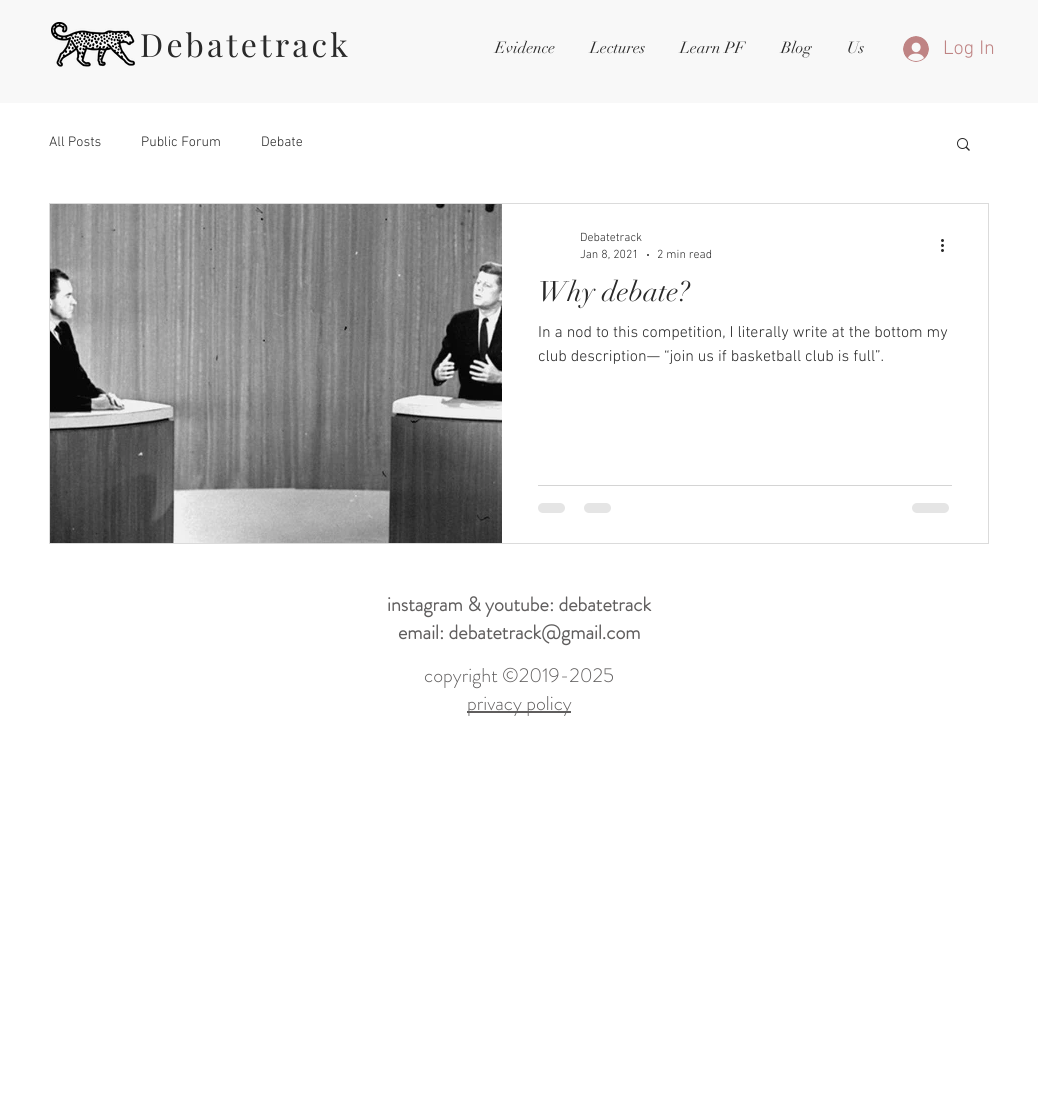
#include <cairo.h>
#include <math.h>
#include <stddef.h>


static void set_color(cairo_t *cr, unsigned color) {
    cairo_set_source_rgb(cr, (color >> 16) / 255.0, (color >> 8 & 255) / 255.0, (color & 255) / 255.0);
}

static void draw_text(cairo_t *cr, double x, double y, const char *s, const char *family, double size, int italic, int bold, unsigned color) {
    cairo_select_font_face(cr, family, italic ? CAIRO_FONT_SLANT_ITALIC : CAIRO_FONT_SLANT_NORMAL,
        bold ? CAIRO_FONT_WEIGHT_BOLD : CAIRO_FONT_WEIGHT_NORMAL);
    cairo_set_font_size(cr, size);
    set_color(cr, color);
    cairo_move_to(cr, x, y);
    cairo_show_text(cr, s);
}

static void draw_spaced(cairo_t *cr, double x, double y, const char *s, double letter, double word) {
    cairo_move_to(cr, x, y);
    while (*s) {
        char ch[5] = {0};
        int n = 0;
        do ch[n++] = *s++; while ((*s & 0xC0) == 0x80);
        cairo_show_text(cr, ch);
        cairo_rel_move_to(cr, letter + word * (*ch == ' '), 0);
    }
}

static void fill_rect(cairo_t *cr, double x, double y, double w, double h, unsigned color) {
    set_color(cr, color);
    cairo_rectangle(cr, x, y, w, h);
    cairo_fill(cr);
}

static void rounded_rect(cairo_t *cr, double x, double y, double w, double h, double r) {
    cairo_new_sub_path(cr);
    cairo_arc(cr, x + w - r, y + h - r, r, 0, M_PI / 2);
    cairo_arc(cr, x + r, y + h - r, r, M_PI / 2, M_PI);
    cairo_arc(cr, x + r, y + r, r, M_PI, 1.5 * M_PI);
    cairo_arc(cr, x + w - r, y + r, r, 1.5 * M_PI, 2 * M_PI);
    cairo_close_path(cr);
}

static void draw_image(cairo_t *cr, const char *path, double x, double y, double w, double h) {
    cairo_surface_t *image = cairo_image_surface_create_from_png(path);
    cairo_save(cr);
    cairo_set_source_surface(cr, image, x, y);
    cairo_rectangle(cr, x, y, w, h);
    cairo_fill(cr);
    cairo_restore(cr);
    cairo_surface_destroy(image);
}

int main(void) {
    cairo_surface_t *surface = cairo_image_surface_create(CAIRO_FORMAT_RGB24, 1038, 1113);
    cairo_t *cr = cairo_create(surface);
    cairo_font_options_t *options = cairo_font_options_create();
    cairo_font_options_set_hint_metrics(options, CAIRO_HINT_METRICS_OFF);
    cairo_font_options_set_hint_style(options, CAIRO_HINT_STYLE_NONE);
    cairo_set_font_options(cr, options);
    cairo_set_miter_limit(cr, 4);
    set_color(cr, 0xFFFFFF);
    cairo_paint(cr);
    fill_rect(cr, 0, 0, 1038, 103, 0xF8F8F8);
    draw_image(cr, "assets/img1.png", 51, 22, 85, 45);
    cairo_select_font_face(cr, "Playfair Display", CAIRO_FONT_SLANT_NORMAL, CAIRO_FONT_WEIGHT_NORMAL);
    cairo_set_font_size(cr, 32);
    set_color(cr, 0x292929);
    draw_spaced(cr, 140, 57, "Debatetrack", 3.25, 0);
    draw_text(cr, 495, 53, "Evidence", "didot", 16, 0, 0, 0x292929);
    draw_text(cr, 590, 53, "Lectures", "didot", 16, 0, 0, 0x292929);
    draw_text(cr, 680, 53, "Learn PF", "didot", 16, 0, 0, 0x292929);
    draw_text(cr, 781, 53, "Blog", "didot", 16, 0, 0, 0x292929);
    draw_text(cr, 847, 53, "Us", "didot", 16, 0, 0, 0x292929);
    draw_image(cr, "assets/img2.png", 903, 36, 26, 26);
    draw_text(cr, 943, 54, "Log In", "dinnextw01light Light", 20, 0, 0, 0xBF8484);
    draw_text(cr, 49, 146, "All Posts", "dinnextw01light Light", 14, 0, 0, 0x292929);
    draw_text(cr, 141, 146, "Public Forum", "dinnextw01light Light", 14, 0, 0, 0x292929);
    draw_text(cr, 261, 146, "Debate", "dinnextw01light Light", 14, 0, 0, 0x292929);
    draw_image(cr, "assets/img3.png", 957, 138, 13, 13);
    cairo_rectangle(cr, 49.5, 203.5, 939, 340);
    set_color(cr, 0xDBDBDB);
    cairo_set_line_width(cr, 1);
    cairo_stroke(cr);
    draw_image(cr, "assets/img4.png", 50, 204, 452, 339);
    draw_text(cr, 580, 241, "Debatetrack", "dinnextw01light Light", 12, 0, 0, 0x292929);
    draw_text(cr, 580, 258, "Jan 8, 2021", "dinnextw01light Light", 12, 0, 0, 0x292929);
    cairo_new_path(cr);
    cairo_arc(cr, 648, 255, 1, 0, 2 * M_PI);
    cairo_fill(cr);
    draw_text(cr, 657, 258, "2 min read", "dinnextw01light Light", 12, 0, 0, 0x292929);
    draw_image(cr, "assets/img5.png", 941, 239, 3, 13);
    draw_text(cr, 538, 301, "Why debate?", "didot", 28, 0, 0, 0x292929);
    draw_text(cr, 538, 337, "In a nod to this competition, I literally write at the bottom my", "dinnextw01light Light", 16, 0, 0, 0x292929);
    draw_text(cr, 538, 361, "club description— “join us if basketball club is full”.", "dinnextw01light Light", 16, 0, 0, 0x292929);
    fill_rect(cr, 538, 485, 414, 1, 0xD4D4D4);
    set_color(cr, 0xE5E5E5);
    rounded_rect(cr, 538, 503, 27, 10, 5);
    cairo_fill(cr);
    rounded_rect(cr, 584, 503, 27, 10, 5);
    cairo_fill(cr);
    rounded_rect(cr, 912, 503, 37, 10, 5);
    cairo_fill(cr);
    draw_text(cr, 387, 611, "instagram & youtube: debatetrack", "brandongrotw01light", 20, 0, 1, 0x605E5E);
    draw_text(cr, 398, 639, "email: debatetrack@gmail.com", "brandongrotw01light", 20, 0, 1, 0x605E5E);
    draw_text(cr, 424, 682, "copyright ©2019-2025", "brandongrotw01light Light", 20, 0, 0, 0x605E5E);
    fill_rect(cr, 467, 711, 104, 2, 0x605E5E);
    draw_text(cr, 467, 710, "privacy policy", "brandongrotw01light Light", 20, 0, 0, 0x605E5E);
    cairo_surface_write_to_png(surface, "output.png");
    cairo_font_options_destroy(options);
    cairo_destroy(cr);
    cairo_surface_destroy(surface);
    return 0;
}
